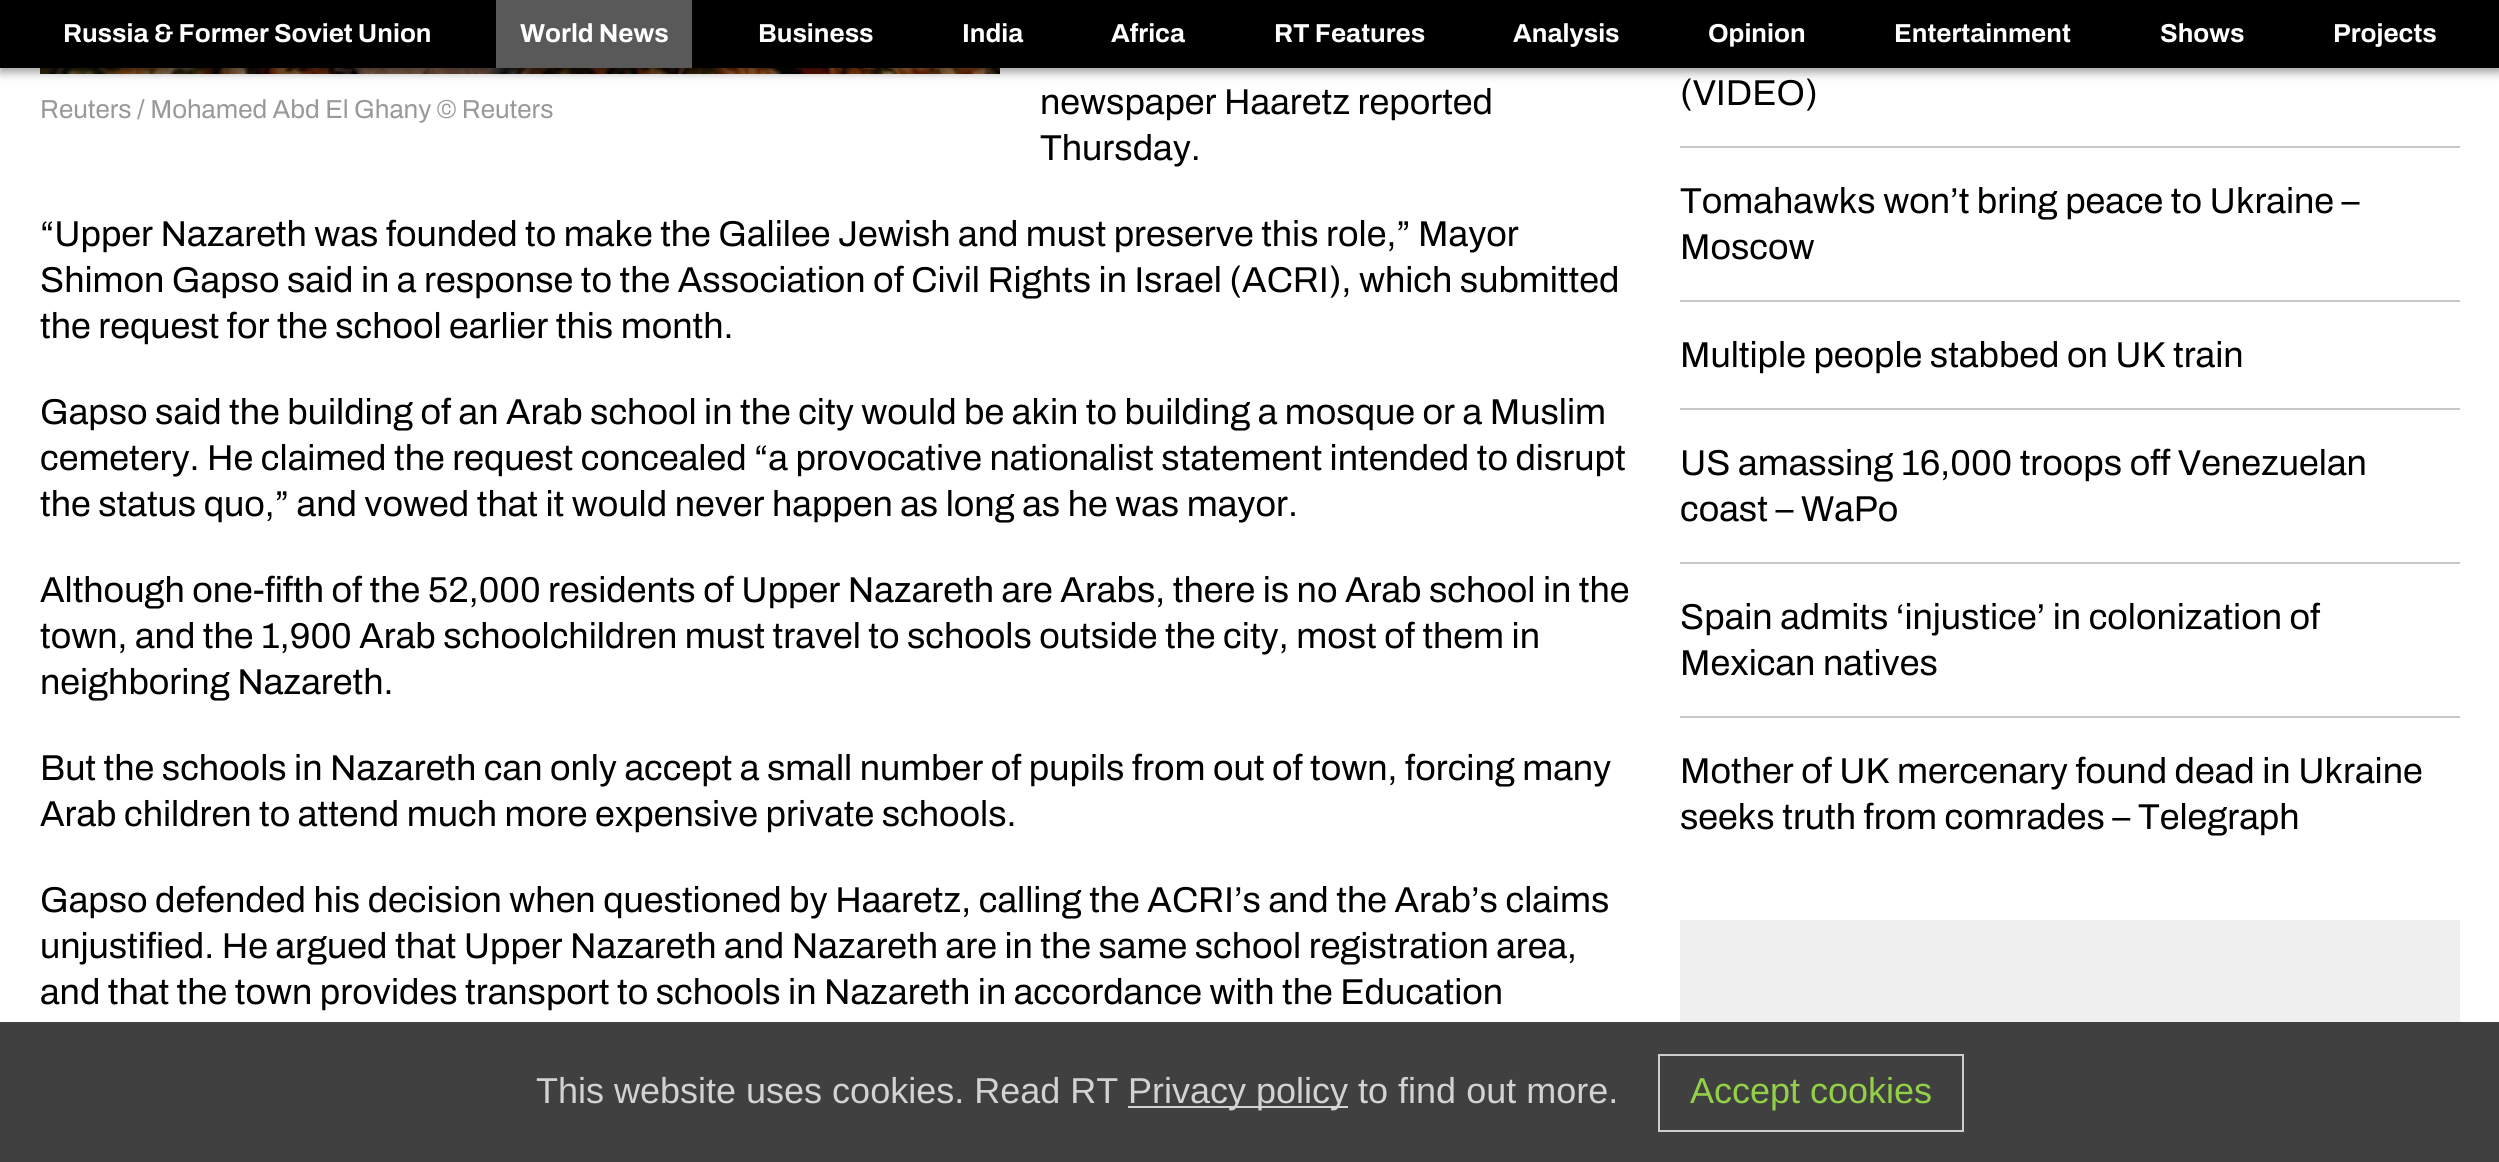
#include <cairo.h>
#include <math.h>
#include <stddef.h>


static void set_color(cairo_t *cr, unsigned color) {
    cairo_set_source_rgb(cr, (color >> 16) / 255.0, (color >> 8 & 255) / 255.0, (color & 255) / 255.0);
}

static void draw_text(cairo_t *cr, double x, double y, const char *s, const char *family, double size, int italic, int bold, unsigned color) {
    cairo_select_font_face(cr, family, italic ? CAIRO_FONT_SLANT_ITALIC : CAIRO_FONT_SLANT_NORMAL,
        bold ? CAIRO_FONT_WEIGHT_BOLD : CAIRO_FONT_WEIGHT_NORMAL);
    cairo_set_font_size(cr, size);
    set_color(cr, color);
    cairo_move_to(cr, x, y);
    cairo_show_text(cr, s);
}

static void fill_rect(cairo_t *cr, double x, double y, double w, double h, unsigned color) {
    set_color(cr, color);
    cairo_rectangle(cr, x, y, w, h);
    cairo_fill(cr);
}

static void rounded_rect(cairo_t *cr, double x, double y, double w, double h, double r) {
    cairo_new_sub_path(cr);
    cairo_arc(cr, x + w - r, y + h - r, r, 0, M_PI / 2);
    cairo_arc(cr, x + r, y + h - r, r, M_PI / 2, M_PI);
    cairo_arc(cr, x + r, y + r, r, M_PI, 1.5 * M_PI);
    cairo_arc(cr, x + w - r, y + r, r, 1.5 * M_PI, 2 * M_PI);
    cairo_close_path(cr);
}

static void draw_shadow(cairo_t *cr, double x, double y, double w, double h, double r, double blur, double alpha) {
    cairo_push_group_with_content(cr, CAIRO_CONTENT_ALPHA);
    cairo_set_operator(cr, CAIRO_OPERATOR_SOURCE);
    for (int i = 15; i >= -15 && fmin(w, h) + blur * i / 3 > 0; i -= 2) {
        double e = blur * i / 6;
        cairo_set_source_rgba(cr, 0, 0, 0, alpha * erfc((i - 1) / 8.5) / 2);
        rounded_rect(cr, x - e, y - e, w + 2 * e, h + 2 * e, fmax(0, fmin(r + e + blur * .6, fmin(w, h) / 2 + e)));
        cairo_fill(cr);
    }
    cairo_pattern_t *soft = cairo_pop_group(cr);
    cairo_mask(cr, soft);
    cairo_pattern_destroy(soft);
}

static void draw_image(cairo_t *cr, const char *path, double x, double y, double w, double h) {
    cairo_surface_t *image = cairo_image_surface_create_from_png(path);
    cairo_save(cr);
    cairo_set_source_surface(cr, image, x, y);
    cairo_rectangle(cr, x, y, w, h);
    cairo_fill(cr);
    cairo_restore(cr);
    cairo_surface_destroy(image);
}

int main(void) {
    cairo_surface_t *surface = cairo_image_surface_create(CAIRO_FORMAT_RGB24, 2499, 1162);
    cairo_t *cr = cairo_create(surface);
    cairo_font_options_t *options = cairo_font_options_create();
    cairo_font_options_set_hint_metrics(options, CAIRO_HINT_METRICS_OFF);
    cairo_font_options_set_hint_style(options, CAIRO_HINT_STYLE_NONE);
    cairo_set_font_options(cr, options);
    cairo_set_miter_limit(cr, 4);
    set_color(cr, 0xFFFFFF);
    cairo_paint(cr);
    draw_image(cr, "assets/img1.png", 40, 68, 960, 6);
    set_color(cr, 0x000000);
    draw_shadow(cr, 0, 4, 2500, 68, 0, 5, 0.4);
    fill_rect(cr, 0, 0, 2499, 68, 0x000000);
    draw_text(cr, 63, 42, "Russia & Former Soviet Union", "Archivo", 26, 0, 1, 0xFFFFFF);
    fill_rect(cr, 496, 0, 196, 68, 0x595959);
    draw_text(cr, 520, 42, "World News", "Archivo", 26, 0, 1, 0xFFFFFF);
    draw_text(cr, 758, 42, "Business", "Archivo", 26, 0, 1, 0xFFFFFF);
    draw_text(cr, 962, 42, "India", "Archivo", 26, 0, 1, 0xFFFFFF);
    draw_text(cr, 1111, 42, "Africa", "Archivo", 26, 0, 1, 0xFFFFFF);
    draw_text(cr, 1274, 42, "RT Features", "Archivo", 26, 0, 1, 0xFFFFFF);
    draw_text(cr, 1513, 42, "Analysis", "Archivo", 26, 0, 1, 0xFFFFFF);
    draw_text(cr, 1708, 42, "Opinion", "Archivo", 26, 0, 1, 0xFFFFFF);
    draw_text(cr, 1894, 42, "Entertainment", "Archivo", 26, 0, 1, 0xFFFFFF);
    draw_text(cr, 2160, 42, "Shows", "Archivo", 26, 0, 1, 0xFFFFFF);
    draw_text(cr, 2333, 42, "Projects", "Archivo", 26, 0, 1, 0xFFFFFF);
    fill_rect(cr, 0, 1022, 2499, 140, 0x404040);
    draw_text(cr, 1040, 114, "newspaper Haaretz reported", "Archivo", 36, 0, 0, 0x000000);
    draw_text(cr, 1040, 160, "Thursday.", "Archivo", 36, 0, 0, 0x000000);
    draw_text(cr, 40, 246, "“Upper Nazareth was founded to make the Galilee Jewish and must preserve this role,” Mayor", "Archivo", 36, 0, 0, 0x000000);
    draw_text(cr, 40, 292, "Shimon Gapso said in a response to the Association of Civil Rights in Israel (ACRI), which submitted", "Archivo", 36, 0, 0, 0x000000);
    draw_text(cr, 40, 338, "the request for the school earlier this month.", "Archivo", 36, 0, 0, 0x000000);
    draw_text(cr, 40, 424, "Gapso said the building of an Arab school in the city would be akin to building a mosque or a Muslim", "Archivo", 36, 0, 0, 0x000000);
    draw_text(cr, 40, 470, "cemetery. He claimed the request concealed “a provocative nationalist statement intended to disrupt", "Archivo", 36, 0, 0, 0x000000);
    draw_text(cr, 40, 516, "the status quo,” and vowed that it would never happen as long as he was mayor.", "Archivo", 36, 0, 0, 0x000000);
    draw_text(cr, 40, 602, "Although one-fifth of the 52,000 residents of Upper Nazareth are Arabs, there is no Arab school in the", "Archivo", 36, 0, 0, 0x000000);
    draw_text(cr, 40, 648, "town, and the 1,900 Arab schoolchildren must travel to schools outside the city, most of them in", "Archivo", 36, 0, 0, 0x000000);
    draw_text(cr, 40, 694, "neighboring Nazareth.", "Archivo", 36, 0, 0, 0x000000);
    draw_text(cr, 40, 780, "But the schools in Nazareth can only accept a small number of pupils from out of town, forcing many", "Archivo", 36, 0, 0, 0x000000);
    draw_text(cr, 40, 826, "Arab children to attend much more expensive private schools.", "Archivo", 36, 0, 0, 0x000000);
    draw_text(cr, 40, 912, "Gapso defended his decision when questioned by Haaretz, calling the ACRI’s and the Arab’s claims", "Archivo", 36, 0, 0, 0x000000);
    draw_text(cr, 40, 958, "unjustified. He argued that Upper Nazareth and Nazareth are in the same school registration area,", "Archivo", 36, 0, 0, 0x000000);
    draw_text(cr, 40, 1004, "and that the town provides transport to schools in Nazareth in accordance with the Education", "Archivo", 36, 0, 0, 0x000000);
    draw_text(cr, 40, 118, "Reuters / Mohamed Abd El Ghany © Reuters", "Archivo", 26, 0, 0, 0x999999);
    fill_rect(cr, 1680, 146, 780, 2, 0xC7C7C7);
    draw_text(cr, 1680, 105, "(VIDEO)", "Archivo", 36, 0, 0, 0x000000);
    fill_rect(cr, 1680, 300, 780, 2, 0xC7C7C7);
    draw_text(cr, 1680, 213, "Tomahawks won’t bring peace to Ukraine –", "Archivo", 36, 0, 0, 0x000000);
    draw_text(cr, 1680, 259, "Moscow", "Archivo", 36, 0, 0, 0x000000);
    fill_rect(cr, 1680, 408, 780, 2, 0xC7C7C7);
    draw_text(cr, 1680, 367, "Multiple people stabbed on UK train", "Archivo", 36, 0, 0, 0x000000);
    fill_rect(cr, 1680, 562, 780, 2, 0xC7C7C7);
    draw_text(cr, 1680, 475, "US amassing 16,000 troops off Venezuelan", "Archivo", 36, 0, 0, 0x000000);
    draw_text(cr, 1680, 521, "coast – WaPo", "Archivo", 36, 0, 0, 0x000000);
    fill_rect(cr, 1680, 716, 780, 2, 0xC7C7C7);
    draw_text(cr, 1680, 629, "Spain admits ‘injustice’ in colonization of", "Archivo", 36, 0, 0, 0x000000);
    draw_text(cr, 1680, 675, "Mexican natives", "Archivo", 36, 0, 0, 0x000000);
    draw_text(cr, 1680, 783, "Mother of UK mercenary found dead in Ukraine", "Archivo", 36, 0, 0, 0x000000);
    draw_text(cr, 1680, 829, "seeks truth from comrades – Telegraph", "Archivo", 36, 0, 0, 0x000000);
    fill_rect(cr, 1680, 920, 780, 102, 0xEFEFEF);
    draw_text(cr, 536, 1103, "This website uses cookies. Read RT", "Liberation Sans", 36, 0, 0, 0xD2D2D2);
    fill_rect(cr, 1128, 1106, 220, 2, 0xD2D2D2);
    draw_text(cr, 1128, 1103, "Privacy policy to find out more.", "Liberation Sans", 36, 0, 0, 0xD2D2D2);
    cairo_rectangle(cr, 1659, 1055, 304, 76);
    cairo_set_source_rgba(cr, 0.82, 0.82, 0.82, 0.97);
    cairo_stroke(cr);
    draw_text(cr, 1690, 1103, "Accept cookies", "Liberation Sans", 36, 0, 0, 0x93CF47);
    cairo_surface_write_to_png(surface, "output.png");
    cairo_font_options_destroy(options);
    cairo_destroy(cr);
    cairo_surface_destroy(surface);
    return 0;
}
